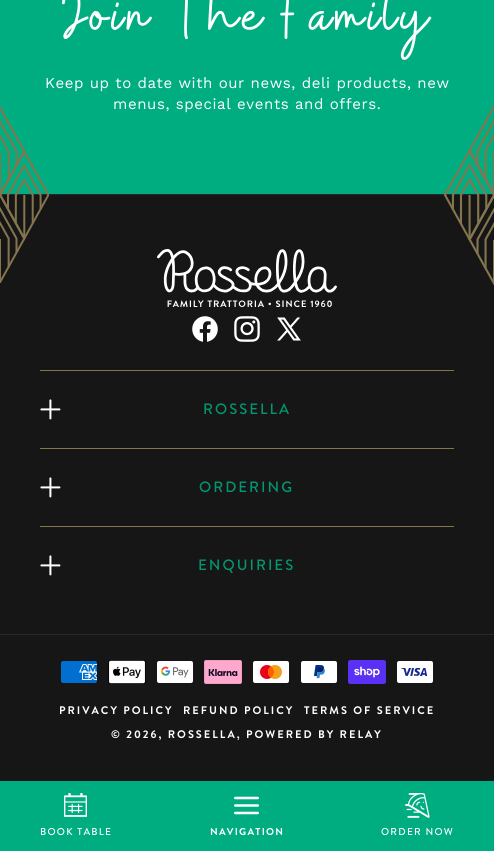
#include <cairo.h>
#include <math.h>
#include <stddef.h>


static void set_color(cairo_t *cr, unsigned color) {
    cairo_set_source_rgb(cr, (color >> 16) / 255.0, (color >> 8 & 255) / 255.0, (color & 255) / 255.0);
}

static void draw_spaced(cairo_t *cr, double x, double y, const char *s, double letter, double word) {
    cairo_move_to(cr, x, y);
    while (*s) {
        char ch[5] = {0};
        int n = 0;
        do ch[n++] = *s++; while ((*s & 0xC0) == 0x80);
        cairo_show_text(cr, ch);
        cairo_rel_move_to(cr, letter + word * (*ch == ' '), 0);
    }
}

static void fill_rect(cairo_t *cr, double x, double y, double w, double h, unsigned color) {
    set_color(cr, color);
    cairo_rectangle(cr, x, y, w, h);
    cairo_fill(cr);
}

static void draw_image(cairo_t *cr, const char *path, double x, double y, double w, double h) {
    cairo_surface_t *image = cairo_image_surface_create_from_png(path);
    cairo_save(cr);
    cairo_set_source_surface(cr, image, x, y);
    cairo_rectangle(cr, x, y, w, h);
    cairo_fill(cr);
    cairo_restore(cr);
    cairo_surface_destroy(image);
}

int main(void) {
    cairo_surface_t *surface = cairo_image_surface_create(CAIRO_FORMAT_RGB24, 494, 851);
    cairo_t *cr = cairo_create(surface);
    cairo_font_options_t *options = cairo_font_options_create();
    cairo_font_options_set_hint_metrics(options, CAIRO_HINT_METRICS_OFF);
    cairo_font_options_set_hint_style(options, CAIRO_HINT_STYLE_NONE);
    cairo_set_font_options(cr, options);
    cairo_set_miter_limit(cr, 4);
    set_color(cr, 0x161616);
    cairo_paint(cr);
    fill_rect(cr, 0, 0, 494, 194, 0x00AD81);
    cairo_select_font_face(cr, "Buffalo", CAIRO_FONT_SLANT_NORMAL, CAIRO_FONT_WEIGHT_NORMAL);
    cairo_set_font_size(cr, 69);
    set_color(cr, 0xFFFFFF);
    draw_spaced(cr, 62, 39, "Join The Family", 0.6, 0);
    cairo_select_font_face(cr, "Work Sans", CAIRO_FONT_SLANT_NORMAL, CAIRO_FONT_WEIGHT_NORMAL);
    cairo_set_font_size(cr, 15);
    draw_spaced(cr, 45, 88, "Keep up to date with our news, deli products, new", 0.6, 0);
    draw_spaced(cr, 113, 109, "menus, special events and offers.", 0.6, 0);
    fill_rect(cr, 0, 194, 494, 1, 0x292929);
    draw_image(cr, "assets/img1.png", 0, 106, 49, 177);
    draw_image(cr, "assets/img2.png", 444, 104, 50, 181);
    draw_image(cr, "assets/img3.png", 157, 249, 180, 59);
    draw_image(cr, "assets/img4.png", 192, 316, 26, 26);
    draw_image(cr, "assets/img5.png", 234, 316, 26, 26);
    draw_image(cr, "assets/img6.png", 277, 317, 24, 24);
    fill_rect(cr, 40, 370, 414, 1, 0x85754E);
    draw_image(cr, "assets/img7.png", 40, 399, 21, 21);
    cairo_select_font_face(cr, "Brandon Grotesque Medium", CAIRO_FONT_SLANT_NORMAL, CAIRO_FONT_WEIGHT_NORMAL);
    set_color(cr, 0x019771);
    draw_spaced(cr, 203, 414, "ROSSELLA", 2, 0);
    fill_rect(cr, 40, 448, 414, 1, 0x85754E);
    draw_image(cr, "assets/img7.png", 40, 477, 21, 21);
    set_color(cr, 0x019771);
    draw_spaced(cr, 199, 492, "ORDERING", 2, 0);
    fill_rect(cr, 40, 526, 414, 1, 0x85754E);
    draw_image(cr, "assets/img7.png", 40, 555, 21, 21);
    set_color(cr, 0x019771);
    draw_spaced(cr, 198, 570, "ENQUIRIES", 2, 0);
    fill_rect(cr, 0, 634, 494, 1, 0x292929);
    draw_image(cr, "assets/img8.png", 61, 661, 36, 22);
    draw_image(cr, "assets/img9.png", 108, 660, 38, 24);
    draw_image(cr, "assets/img10.png", 157, 661, 36, 22);
    draw_image(cr, "assets/img11.png", 204, 660, 38, 24);
    draw_image(cr, "assets/img12.png", 253, 661, 36, 22);
    draw_image(cr, "assets/img13.png", 301, 661, 36, 22);
    draw_image(cr, "assets/img14.png", 348, 660, 38, 24);
    draw_image(cr, "assets/img15.png", 397, 661, 36, 22);
    cairo_select_font_face(cr, "Brandon Grotesque", CAIRO_FONT_SLANT_NORMAL, CAIRO_FONT_WEIGHT_BOLD);
    cairo_set_font_size(cr, 11);
    set_color(cr, 0xFFFFFF);
    draw_spaced(cr, 59, 714, "PRIVACY POLICY", 2, 0);
    draw_spaced(cr, 183, 714, "REFUND POLICY", 2, 0);
    draw_spaced(cr, 304, 714, "TERMS OF SERVICE", 2, 0);
    draw_spaced(cr, 111, 738, "© 2026, ROSSELLA, POWERED BY RELAY", 2, 0);
    fill_rect(cr, 0, 781, 494, 70, 0x00AD81);
    draw_image(cr, "assets/img16.png", 64, 793, 23, 24);
    cairo_select_font_face(cr, "Brandon Grotesque Medium", CAIRO_FONT_SLANT_NORMAL, CAIRO_FONT_WEIGHT_NORMAL);
    cairo_set_font_size(cr, 10);
    set_color(cr, 0xFFFFFF);
    draw_spaced(cr, 40, 835, "BOOK TABLE", 1.25, 0);
    draw_image(cr, "assets/img17.png", 234, 796, 25, 19);
    cairo_select_font_face(cr, "Brandon Grotesque", CAIRO_FONT_SLANT_NORMAL, CAIRO_FONT_WEIGHT_BOLD);
    draw_spaced(cr, 210, 835, "NAVIGATION", 1.25, 0);
    draw_image(cr, "assets/img18.png", 405, 793, 25, 25);
    cairo_select_font_face(cr, "Brandon Grotesque Medium", CAIRO_FONT_SLANT_NORMAL, CAIRO_FONT_WEIGHT_NORMAL);
    draw_spaced(cr, 381, 835, "ORDER NOW", 1.25, 0);
    cairo_surface_write_to_png(surface, "output.png");
    cairo_font_options_destroy(options);
    cairo_destroy(cr);
    cairo_surface_destroy(surface);
    return 0;
}
